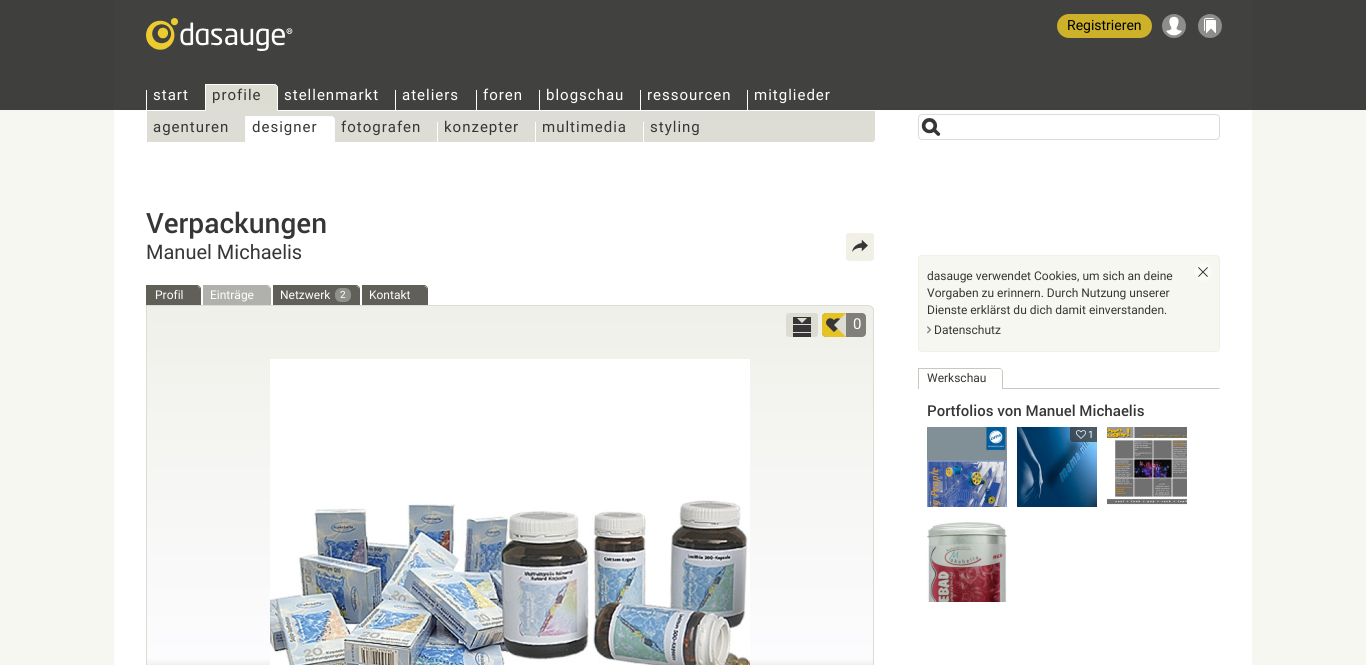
#include <cairo.h>
#include <math.h>
#include <stddef.h>


static void set_color(cairo_t *cr, unsigned color) {
    cairo_set_source_rgb(cr, (color >> 16) / 255.0, (color >> 8 & 255) / 255.0, (color & 255) / 255.0);
}

static void draw_text(cairo_t *cr, double x, double y, const char *s, const char *family, double size, int italic, int bold, unsigned color) {
    cairo_select_font_face(cr, family, italic ? CAIRO_FONT_SLANT_ITALIC : CAIRO_FONT_SLANT_NORMAL,
        bold ? CAIRO_FONT_WEIGHT_BOLD : CAIRO_FONT_WEIGHT_NORMAL);
    cairo_set_font_size(cr, size);
    set_color(cr, color);
    cairo_move_to(cr, x, y);
    cairo_show_text(cr, s);
}

static void draw_spaced(cairo_t *cr, double x, double y, const char *s, double letter, double word) {
    cairo_move_to(cr, x, y);
    while (*s) {
        char ch[5] = {0};
        int n = 0;
        do ch[n++] = *s++; while ((*s & 0xC0) == 0x80);
        cairo_show_text(cr, ch);
        cairo_rel_move_to(cr, letter + word * (*ch == ' '), 0);
    }
}

static void fill_rect(cairo_t *cr, double x, double y, double w, double h, unsigned color) {
    set_color(cr, color);
    cairo_rectangle(cr, x, y, w, h);
    cairo_fill(cr);
}

static void rounded_rect(cairo_t *cr, double x, double y, double w, double h, double r) {
    cairo_new_sub_path(cr);
    cairo_arc(cr, x + w - r, y + h - r, r, 0, M_PI / 2);
    cairo_arc(cr, x + r, y + h - r, r, M_PI / 2, M_PI);
    cairo_arc(cr, x + r, y + r, r, M_PI, 1.5 * M_PI);
    cairo_arc(cr, x + w - r, y + r, r, 1.5 * M_PI, 2 * M_PI);
    cairo_close_path(cr);
}

static void draw_image(cairo_t *cr, const char *path, double x, double y, double w, double h) {
    cairo_surface_t *image = cairo_image_surface_create_from_png(path);
    cairo_save(cr);
    cairo_set_source_surface(cr, image, x, y);
    cairo_rectangle(cr, x, y, w, h);
    cairo_fill(cr);
    cairo_restore(cr);
    cairo_surface_destroy(image);
}

int main(void) {
    cairo_surface_t *surface = cairo_image_surface_create(CAIRO_FORMAT_RGB24, 1366, 665);
    cairo_t *cr = cairo_create(surface);
    cairo_font_options_t *options = cairo_font_options_create();
    cairo_font_options_set_hint_metrics(options, CAIRO_HINT_METRICS_OFF);
    cairo_font_options_set_hint_style(options, CAIRO_HINT_STYLE_NONE);
    cairo_set_font_options(cr, options);
    cairo_set_miter_limit(cr, 4);
    cairo_pattern_t *gradient;
    set_color(cr, 0xF7F7F2);
    cairo_paint(cr);
    fill_rect(cr, 0, 0, 1366, 110, 0x3F3F3D);
    fill_rect(cr, 114, 110, 1138, 555, 0xFFFFFF);
    fill_rect(cr, 114, 0, 1138, 110, 0x414140);
    draw_image(cr, "assets/img1.png", 146, 18, 147, 33);
    set_color(cr, 0xCDB129);
    rounded_rect(cr, 1057, 14, 95, 24, 12);
    cairo_fill(cr);
    draw_text(cr, 1067, 30, "Registrieren", "Roboto", 14, 0, 0, 0x000000);
    draw_image(cr, "assets/img2.png", 1162, 14, 24, 24);
    draw_image(cr, "assets/img3.png", 1198, 14, 24, 24);
    draw_image(cr, "assets/img4.png", 921, 118, 20, 18);
    rounded_rect(cr, 918.5, 114.5, 301, 25, 3.5);
    set_color(cr, 0xDCDCD2);
    cairo_set_line_width(cr, 1);
    cairo_stroke(cr);
    set_color(cr, 0xDDDDD6);
    cairo_new_path(cr);
    cairo_move_to(cr, 146.5, 110.5);
    cairo_line_to(cr, 875.5, 110.5);
    cairo_line_to(cr, 875.5, 139);
    cairo_curve_to(cr, 875.5, 141, 874, 142.5, 872, 142.5);
    cairo_line_to(cr, 146.5, 142.5);
    cairo_close_path(cr);
    cairo_fill_preserve(cr);
    set_color(cr, 0xFFFFFF);
    cairo_stroke(cr);
    set_color(cr, 0xDCDCD2);
    cairo_new_path(cr);
    cairo_move_to(cr, 205, 84);
    cairo_line_to(cr, 274, 84);
    cairo_curve_to(cr, 276, 84, 278, 86, 278, 88);
    cairo_line_to(cr, 278, 111);
    cairo_line_to(cr, 205, 111);
    cairo_close_path(cr);
    cairo_fill(cr);
    set_color(cr, 0xFFFFFF);
    cairo_set_fill_rule(cr, CAIRO_FILL_RULE_EVEN_ODD);
    cairo_new_path(cr);
    cairo_move_to(cr, 205, 84);
    cairo_line_to(cr, 274, 84);
    cairo_curve_to(cr, 276, 84, 278, 86, 278, 88);
    cairo_line_to(cr, 278, 111);
    cairo_line_to(cr, 205, 111);
    cairo_close_path(cr);
    cairo_move_to(cr, 206, 85);
    cairo_line_to(cr, 274, 85);
    cairo_curve_to(cr, 276, 85, 277, 86, 277, 88);
    cairo_line_to(cr, 277, 111);
    cairo_line_to(cr, 206, 111);
    cairo_close_path(cr);
    cairo_fill(cr);
    cairo_set_font_size(cr, 15);
    set_color(cr, 0x363634);
    draw_spaced(cr, 212, 100, "profile", 1, 0);
    draw_spaced(cr, 153, 132, "agenturen", 1, 0);
    set_color(cr, 0xFFFFFF);
    cairo_new_path(cr);
    cairo_move_to(cr, 245, 116);
    cairo_line_to(cr, 331, 116);
    cairo_curve_to(cr, 333, 116, 335, 118, 335, 120);
    cairo_line_to(cr, 335, 142);
    cairo_line_to(cr, 245, 142);
    cairo_close_path(cr);
    cairo_fill(cr);
    set_color(cr, 0xFCFCFA);
    cairo_new_path(cr);
    cairo_move_to(cr, 245, 116);
    cairo_line_to(cr, 331, 116);
    cairo_curve_to(cr, 333, 116, 335, 118, 335, 120);
    cairo_line_to(cr, 335, 142);
    cairo_line_to(cr, 245, 142);
    cairo_close_path(cr);
    cairo_move_to(cr, 246, 117);
    cairo_line_to(cr, 331, 117);
    cairo_curve_to(cr, 333, 117, 334, 118, 334, 120);
    cairo_line_to(cr, 334, 142);
    cairo_line_to(cr, 246, 142);
    cairo_close_path(cr);
    cairo_fill(cr);
    set_color(cr, 0x363634);
    draw_spaced(cr, 252, 132, "designer", 1, 0);
    draw_spaced(cr, 341, 132, "fotografen", 1, 0);
    fill_rect(cr, 437, 122, 1, 20, 0xFFFFFF);
    set_color(cr, 0x363634);
    draw_spaced(cr, 444, 132, "konzepter", 1, 0);
    fill_rect(cr, 535, 122, 1, 20, 0xFFFFFF);
    set_color(cr, 0x363634);
    draw_spaced(cr, 542, 132, "multimedia", 1, 0);
    fill_rect(cr, 643, 122, 1, 20, 0xFFFFFF);
    set_color(cr, 0x363634);
    draw_spaced(cr, 650, 132, "styling", 1, 0);
    fill_rect(cr, 146, 90, 1, 20, 0xFFFFFF);
    draw_spaced(cr, 153, 100, "start", 1, 0);
    draw_spaced(cr, 284, 100, "stellenmarkt", 1, 0);
    fill_rect(cr, 395, 90, 1, 20, 0xFFFFFF);
    draw_spaced(cr, 402, 100, "ateliers", 1, 0);
    fill_rect(cr, 476, 90, 1, 20, 0xFFFFFF);
    draw_spaced(cr, 483, 100, "foren", 1, 0);
    fill_rect(cr, 539, 90, 1, 20, 0xFFFFFF);
    draw_spaced(cr, 546, 100, "blogschau", 1, 0);
    fill_rect(cr, 640, 90, 1, 20, 0xFFFFFF);
    draw_spaced(cr, 647, 100, "ressourcen", 1, 0);
    fill_rect(cr, 747, 90, 1, 20, 0xFFFFFF);
    draw_spaced(cr, 754, 100, "mitglieder", 1, 0);
    draw_text(cr, 146, 233, "Verpackungen", "Roboto Medium", 28, 0, 0, 0x363634);
    draw_text(cr, 146, 259, "Manuel Michaelis", "Roboto", 20, 0, 0, 0x363634);
    set_color(cr, 0xF0F0E6);
    rounded_rect(cr, 846, 233, 28, 28, 3);
    cairo_fill(cr);
    draw_image(cr, "assets/img5.png", 852, 239, 16, 13);
    set_color(cr, 0x606058);
    cairo_new_path(cr);
    cairo_move_to(cr, 147, 286);
    cairo_line_to(cr, 197, 286);
    cairo_curve_to(cr, 198.5, 286, 200, 287.5, 200, 289);
    cairo_line_to(cr, 200, 305);
    cairo_line_to(cr, 147, 305);
    cairo_close_path(cr);
    cairo_fill(cr);
    cairo_new_path(cr);
    cairo_move_to(cr, 146, 285);
    cairo_line_to(cr, 197, 285);
    cairo_curve_to(cr, 199, 285, 201, 287, 201, 289);
    cairo_line_to(cr, 201, 305);
    cairo_line_to(cr, 146, 305);
    cairo_close_path(cr);
    cairo_move_to(cr, 147, 286);
    cairo_line_to(cr, 197, 286);
    cairo_curve_to(cr, 199, 286, 200, 287, 200, 289);
    cairo_line_to(cr, 200, 305);
    cairo_line_to(cr, 147, 305);
    cairo_close_path(cr);
    cairo_fill(cr);
    draw_text(cr, 155, 299, "Profil", "Roboto", 12, 0, 0, 0xFFFFFF);
    set_color(cr, 0xB0B0AC);
    cairo_new_path(cr);
    cairo_move_to(cr, 204, 286);
    cairo_line_to(cr, 267, 286);
    cairo_curve_to(cr, 268.5, 286, 270, 287.5, 270, 289);
    cairo_line_to(cr, 270, 305);
    cairo_line_to(cr, 204, 305);
    cairo_close_path(cr);
    cairo_fill(cr);
    cairo_new_path(cr);
    cairo_move_to(cr, 203, 285);
    cairo_line_to(cr, 267, 285);
    cairo_curve_to(cr, 269, 285, 271, 287, 271, 289);
    cairo_line_to(cr, 271, 305);
    cairo_line_to(cr, 203, 305);
    cairo_close_path(cr);
    cairo_move_to(cr, 204, 286);
    cairo_line_to(cr, 267, 286);
    cairo_curve_to(cr, 269, 286, 270, 287, 270, 289);
    cairo_line_to(cr, 270, 305);
    cairo_line_to(cr, 204, 305);
    cairo_close_path(cr);
    cairo_fill(cr);
    draw_text(cr, 210, 299, "Einträge", "Roboto", 12, 0, 0, 0xFFFFFF);
    set_color(cr, 0x606058);
    cairo_new_path(cr);
    cairo_move_to(cr, 274, 286);
    cairo_line_to(cr, 356, 286);
    cairo_curve_to(cr, 357.5, 286, 359, 287.5, 359, 289);
    cairo_line_to(cr, 359, 305);
    cairo_line_to(cr, 274, 305);
    cairo_close_path(cr);
    cairo_fill(cr);
    cairo_new_path(cr);
    cairo_move_to(cr, 273, 285);
    cairo_line_to(cr, 356, 285);
    cairo_curve_to(cr, 358, 285, 360, 287, 360, 289);
    cairo_line_to(cr, 360, 305);
    cairo_line_to(cr, 273, 305);
    cairo_close_path(cr);
    cairo_move_to(cr, 274, 286);
    cairo_line_to(cr, 356, 286);
    cairo_curve_to(cr, 358, 286, 359, 287, 359, 289);
    cairo_line_to(cr, 359, 305);
    cairo_line_to(cr, 274, 305);
    cairo_close_path(cr);
    cairo_fill(cr);
    draw_text(cr, 280, 299, "Netzwerk", "Roboto", 12, 0, 0, 0xFFFFFF);
    set_color(cr, 0x90908D);
    rounded_rect(cr, 335, 288, 16, 14, 6);
    cairo_fill(cr);
    draw_text(cr, 340, 298, "2", "Roboto", 10, 0, 0, 0xFFFFFF);
    set_color(cr, 0x606058);
    cairo_new_path(cr);
    cairo_move_to(cr, 363, 286);
    cairo_line_to(cr, 424, 286);
    cairo_curve_to(cr, 425.5, 286, 427, 287.5, 427, 289);
    cairo_line_to(cr, 427, 305);
    cairo_line_to(cr, 363, 305);
    cairo_close_path(cr);
    cairo_fill(cr);
    cairo_new_path(cr);
    cairo_move_to(cr, 362, 285);
    cairo_line_to(cr, 424, 285);
    cairo_curve_to(cr, 426, 285, 428, 287, 428, 289);
    cairo_line_to(cr, 428, 305);
    cairo_line_to(cr, 362, 305);
    cairo_close_path(cr);
    cairo_move_to(cr, 363, 286);
    cairo_line_to(cr, 424, 286);
    cairo_curve_to(cr, 426, 286, 427, 287, 427, 289);
    cairo_line_to(cr, 427, 305);
    cairo_line_to(cr, 363, 305);
    cairo_close_path(cr);
    cairo_fill(cr);
    draw_text(cr, 369, 299, "Kontakt", "Roboto", 12, 0, 0, 0xFFFFFF);
    cairo_save(cr);
    cairo_set_fill_rule(cr, CAIRO_FILL_RULE_WINDING);
    cairo_new_path(cr);
    cairo_move_to(cr, 146, 305);
    cairo_line_to(cr, 868, 305);
    cairo_curve_to(cr, 871.5, 305, 874, 307.5, 874, 311);
    cairo_line_to(cr, 874, 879);
    cairo_curve_to(cr, 874, 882.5, 871.5, 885, 868, 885);
    cairo_line_to(cr, 152, 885);
    cairo_curve_to(cr, 148.5, 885, 146, 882.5, 146, 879);
    cairo_close_path(cr);
    cairo_clip(cr);
    gradient = cairo_pattern_create_linear(510, 306, 510, 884);
    cairo_pattern_add_color_stop_rgba(gradient, 0, 0.941, 0.941, 0.918, 1);
    cairo_pattern_add_color_stop_rgba(gradient, 0.61, 0.988, 0.988, 0.996, 1);
    cairo_pattern_add_color_stop_rgba(gradient, 0.62, 0.945, 0.945, 0.937, 1);
    cairo_pattern_add_color_stop_rgba(gradient, 1, 0.941, 0.941, 0.918, 1);
    cairo_set_source(cr, gradient);
    cairo_pattern_destroy(gradient);
    cairo_rectangle(cr, 147, 306, 727, 359);
    cairo_fill(cr);
    cairo_restore(cr);
    cairo_new_path(cr);
    cairo_move_to(cr, 146.5, 305.5);
    cairo_line_to(cr, 868, 305.5);
    cairo_curve_to(cr, 871, 305.5, 873.5, 308, 873.5, 311);
    cairo_line_to(cr, 873.5, 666);
    cairo_curve_to(cr, 873.5, 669, 871, 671.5, 868, 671.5);
    cairo_line_to(cr, 152, 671.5);
    cairo_curve_to(cr, 149, 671.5, 146.5, 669, 146.5, 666);
    cairo_close_path(cr);
    set_color(cr, 0xDCDCD2);
    cairo_stroke(cr);
    draw_image(cr, "assets/img6.png", 270, 359, 480, 306);
    rounded_rect(cr, 786, 313, 32, 24, 3);
    cairo_fill(cr);
    draw_image(cr, "assets/img7.png", 793, 317, 18, 20);
    set_color(cr, 0x808078);
    rounded_rect(cr, 822, 313, 44, 24, 4);
    cairo_fill(cr);
    set_color(cr, 0xE5C324);
    cairo_new_path(cr);
    cairo_move_to(cr, 826, 313);
    cairo_line_to(cr, 846, 313);
    cairo_line_to(cr, 846, 337);
    cairo_line_to(cr, 826, 337);
    cairo_curve_to(cr, 824, 337, 822, 335, 822, 333);
    cairo_line_to(cr, 822, 317);
    cairo_curve_to(cr, 822, 315, 824, 313, 826, 313);
    cairo_close_path(cr);
    cairo_fill(cr);
    draw_image(cr, "assets/img8.png", 826, 318, 14, 14);
    set_color(cr, 0xDCDCD2);
    cairo_set_fill_rule(cr, CAIRO_FILL_RULE_WINDING);
    cairo_new_path(cr);
    cairo_move_to(cr, 846, 313);
    cairo_line_to(cr, 834, 325);
    cairo_line_to(cr, 846, 337);
    cairo_close_path(cr);
    cairo_fill(cr);
    draw_text(cr, 853, 329, "0", "Roboto", 15, 0, 0, 0xFFFFFF);
    set_color(cr, 0xF7F7F2);
    rounded_rect(cr, 918.5, 255.5, 301, 96, 3.5);
    cairo_fill_preserve(cr);
    set_color(cr, 0xF0F0E6);
    cairo_stroke(cr);
    draw_text(cr, 927, 280, "dasauge verwendet Cookies, um sich an deine", "Roboto", 12, 0, 0, 0x363634);
    draw_text(cr, 927, 297, "Vorgaben zu erinnern. Durch Nutzung unserer", "Roboto", 12, 0, 0, 0x363634);
    draw_text(cr, 927, 314, "Dienste erklärst du dich damit einverstanden.", "Roboto", 12, 0, 0, 0x363634);
    draw_image(cr, "assets/img9.png", 1194, 263, 18, 18);
    draw_image(cr, "assets/img10.png", 927, 326, 4, 8);
    draw_text(cr, 934, 334, "Datenschutz", "Roboto", 12, 0, 0, 0x363634);
    set_color(cr, 0xC8C8BE);
    cairo_new_path(cr);
    cairo_move_to(cr, 918, 388);
    cairo_line_to(cr, 919, 389);
    cairo_line_to(cr, 1219, 389);
    cairo_line_to(cr, 1220, 388);
    cairo_close_path(cr);
    cairo_fill(cr);
    set_color(cr, 0xFFFFFF);
    cairo_new_path(cr);
    cairo_move_to(cr, 919, 369);
    cairo_line_to(cr, 999, 369);
    cairo_curve_to(cr, 1000.5, 369, 1002, 370.5, 1002, 372);
    cairo_line_to(cr, 1002, 389);
    cairo_line_to(cr, 919, 389);
    cairo_close_path(cr);
    cairo_fill(cr);
    set_color(cr, 0xC8C8BE);
    cairo_set_fill_rule(cr, CAIRO_FILL_RULE_EVEN_ODD);
    cairo_new_path(cr);
    cairo_move_to(cr, 918, 368);
    cairo_line_to(cr, 999, 368);
    cairo_curve_to(cr, 1001, 368, 1003, 370, 1003, 372);
    cairo_line_to(cr, 1003, 389);
    cairo_line_to(cr, 918, 389);
    cairo_close_path(cr);
    cairo_move_to(cr, 919, 369);
    cairo_line_to(cr, 999, 369);
    cairo_curve_to(cr, 1001, 369, 1002, 370, 1002, 372);
    cairo_line_to(cr, 1002, 389);
    cairo_line_to(cr, 919, 389);
    cairo_close_path(cr);
    cairo_fill(cr);
    draw_text(cr, 927, 382, "Werkschau", "Roboto", 12, 0, 0, 0x363634);
    draw_text(cr, 927, 416, "Portfolios von Manuel Michaelis", "Roboto Medium", 15, 0, 0, 0x363634);
    draw_image(cr, "assets/img11.png", 927, 427, 80, 80);
    draw_image(cr, "assets/img12.png", 1017, 427, 80, 80);
    cairo_set_source_rgba(cr, 0.212, 0.212, 0.204, 0.75);
    cairo_new_path(cr);
    cairo_move_to(cr, 1070, 427);
    cairo_line_to(cr, 1097, 427);
    cairo_line_to(cr, 1097, 442);
    cairo_line_to(cr, 1073, 442);
    cairo_curve_to(cr, 1071.5, 442, 1070, 440.5, 1070, 439);
    cairo_close_path(cr);
    cairo_fill(cr);
    draw_image(cr, "assets/img13.png", 1076, 430, 10, 9);
    draw_text(cr, 1088, 438, "1", "Roboto", 10, 0, 0, 0xFFFFFF);
    draw_image(cr, "assets/img14.png", 1107, 427, 80, 80);
    draw_image(cr, "assets/img15.png", 927, 522, 80, 80);
    cairo_surface_write_to_png(surface, "output.png");
    cairo_font_options_destroy(options);
    cairo_destroy(cr);
    cairo_surface_destroy(surface);
    return 0;
}
